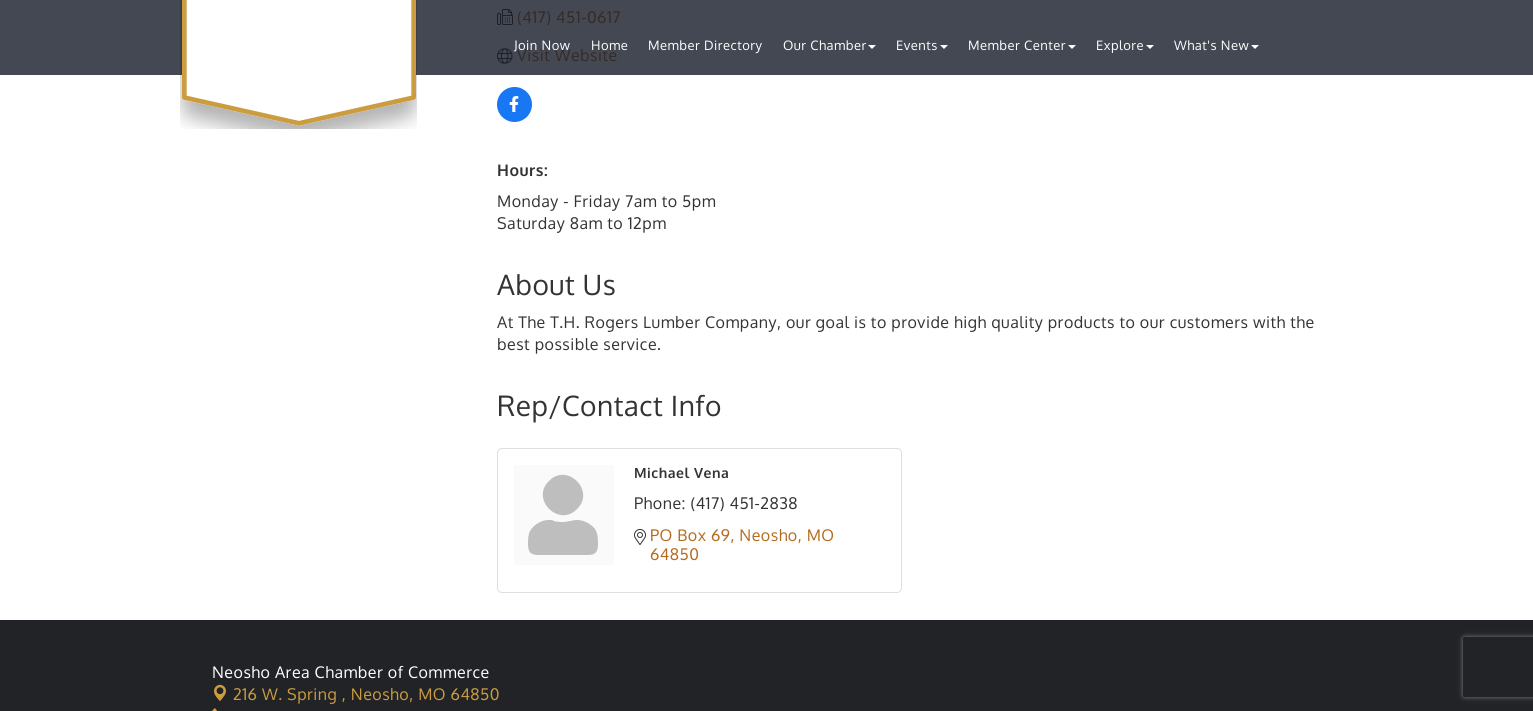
#include <cairo.h>
#include <math.h>
#include <stddef.h>


static void set_color(cairo_t *cr, unsigned color) {
    cairo_set_source_rgb(cr, (color >> 16) / 255.0, (color >> 8 & 255) / 255.0, (color & 255) / 255.0);
}

static void draw_spaced(cairo_t *cr, double x, double y, const char *s, double letter, double word) {
    cairo_move_to(cr, x, y);
    while (*s) {
        char ch[5] = {0};
        int n = 0;
        do ch[n++] = *s++; while ((*s & 0xC0) == 0x80);
        cairo_show_text(cr, ch);
        cairo_rel_move_to(cr, letter + word * (*ch == ' '), 0);
    }
}

static void fill_rect(cairo_t *cr, double x, double y, double w, double h, unsigned color) {
    set_color(cr, color);
    cairo_rectangle(cr, x, y, w, h);
    cairo_fill(cr);
}

static void rounded_rect(cairo_t *cr, double x, double y, double w, double h, double r) {
    cairo_new_sub_path(cr);
    cairo_arc(cr, x + w - r, y + h - r, r, 0, M_PI / 2);
    cairo_arc(cr, x + r, y + h - r, r, M_PI / 2, M_PI);
    cairo_arc(cr, x + r, y + r, r, M_PI, 1.5 * M_PI);
    cairo_arc(cr, x + w - r, y + r, r, 1.5 * M_PI, 2 * M_PI);
    cairo_close_path(cr);
}

static void draw_shadow(cairo_t *cr, double x, double y, double w, double h, double r, double blur, double alpha) {
    cairo_push_group_with_content(cr, CAIRO_CONTENT_ALPHA);
    cairo_set_operator(cr, CAIRO_OPERATOR_SOURCE);
    for (int i = 15; i >= -15 && fmin(w, h) + blur * i / 3 > 0; i -= 2) {
        double e = blur * i / 6;
        cairo_set_source_rgba(cr, 0, 0, 0, alpha * erfc((i - 1) / 8.5) / 2);
        rounded_rect(cr, x - e, y - e, w + 2 * e, h + 2 * e, fmax(0, fmin(r + e + blur * .6, fmin(w, h) / 2 + e)));
        cairo_fill(cr);
    }
    cairo_pattern_t *soft = cairo_pop_group(cr);
    cairo_mask(cr, soft);
    cairo_pattern_destroy(soft);
}

static void draw_image(cairo_t *cr, const char *path, double x, double y, double w, double h) {
    cairo_surface_t *image = cairo_image_surface_create_from_png(path);
    cairo_save(cr);
    cairo_set_source_surface(cr, image, x, y);
    cairo_rectangle(cr, x, y, w, h);
    cairo_fill(cr);
    cairo_restore(cr);
    cairo_surface_destroy(image);
}

int main(void) {
    cairo_surface_t *surface = cairo_image_surface_create(CAIRO_FORMAT_RGB24, 1533, 711);
    cairo_t *cr = cairo_create(surface);
    cairo_font_options_t *options = cairo_font_options_create();
    cairo_font_options_set_hint_metrics(options, CAIRO_HINT_METRICS_OFF);
    cairo_font_options_set_hint_style(options, CAIRO_HINT_STYLE_NONE);
    cairo_set_font_options(cr, options);
    cairo_set_miter_limit(cr, 4);
    set_color(cr, 0xFFFFFF);
    cairo_paint(cr);
    fill_rect(cr, 0, 0, 1533, 75, 0x444853);
    draw_image(cr, "assets/img1.png", 497, 9, 16, 16);
    cairo_select_font_face(cr, "Oxygen", CAIRO_FONT_SLANT_NORMAL, CAIRO_FONT_WEIGHT_NORMAL);
    cairo_set_font_size(cr, 16);
    set_color(cr, 0x352A26);
    draw_spaced(cr, 517, 23, "(417) 451-0617", 0.5, 0);
    draw_image(cr, "assets/img2.png", 497, 48, 16, 16);
    draw_spaced(cr, 517, 61, "Visit Website", 0.5, 0);
    set_color(cr, 0x1877F2);
    cairo_new_path(cr);
    cairo_arc(cr, 514.5, 104.5, 17.5, 0, 2 * M_PI);
    cairo_fill(cr);
    draw_image(cr, "assets/img3.png", 509, 96, 10, 16);
    cairo_select_font_face(cr, "Oxygen", CAIRO_FONT_SLANT_NORMAL, CAIRO_FONT_WEIGHT_BOLD);
    set_color(cr, 0x333333);
    draw_spaced(cr, 497, 176, "Hours:", 0.5, 0);
    cairo_select_font_face(cr, "Oxygen", CAIRO_FONT_SLANT_NORMAL, CAIRO_FONT_WEIGHT_NORMAL);
    draw_spaced(cr, 497, 207, "Monday - Friday 7am to 5pm", 0.5, 0);
    draw_spaced(cr, 497, 229, "Saturday 8am to 12pm", 0.5, 0);
    cairo_set_font_size(cr, 28);
    draw_spaced(cr, 497, 295, "About Us", 0.5, 0);
    cairo_set_font_size(cr, 16);
    draw_spaced(cr, 497, 328, "At The T.H. Rogers Lumber Company, our goal is to provide high quality products to our customers with the", 0.5, 0);
    draw_spaced(cr, 497, 350, "best possible service.", 0.5, 0);
    cairo_set_font_size(cr, 28);
    draw_spaced(cr, 497, 416, "Rep/Contact Info", 0.5, 0);
    rounded_rect(cr, 497.5, 448.5, 404, 144, 4.5);
    set_color(cr, 0xDFDFDF);
    cairo_set_line_width(cr, 1);
    cairo_stroke(cr);
    fill_rect(cr, 514, 465, 100, 100, 0xFAFAFA);
    set_color(cr, 0xBEBEBE);
    cairo_new_path(cr);
    cairo_move_to(cr, 577, 509);
    cairo_curve_to(cr, 559, 528, 530, 499, 549, 481);
    cairo_curve_to(cr, 567, 462, 596, 491, 577, 509);
    cairo_close_path(cr);
    cairo_move_to(cr, 577, 520);
    cairo_curve_to(cr, 584, 520, 591, 524, 595, 529);
    cairo_curve_to(cr, 598, 534, 598, 539, 598, 544);
    cairo_curve_to(cr, 598, 556, 592, 555, 581, 555);
    cairo_line_to(cr, 545, 555);
    cairo_curve_to(cr, 534, 555, 528, 556, 528, 544);
    cairo_curve_to(cr, 528, 540, 528, 535, 530, 531);
    cairo_curve_to(cr, 534, 524, 543, 519, 552, 520);
    cairo_line_to(cr, 554, 521);
    cairo_curve_to(cr, 557, 522, 560, 522, 563, 522);
    cairo_curve_to(cr, 568, 522, 572, 520, 577, 520);
    cairo_close_path(cr);
    cairo_fill(cr);
    cairo_select_font_face(cr, "Oxygen", CAIRO_FONT_SLANT_NORMAL, CAIRO_FONT_WEIGHT_BOLD);
    cairo_set_font_size(cr, 14);
    set_color(cr, 0x333333);
    draw_spaced(cr, 634, 478, "Michael Vena", 0.5, 0);
    cairo_select_font_face(cr, "Oxygen", CAIRO_FONT_SLANT_NORMAL, CAIRO_FONT_WEIGHT_NORMAL);
    cairo_set_font_size(cr, 16);
    draw_spaced(cr, 634, 509, "Phone: (417) 451-2838", 0.5, 0);
    draw_image(cr, "assets/img4.png", 634, 529, 12, 16);
    set_color(cr, 0xB46A1C);
    draw_spaced(cr, 650, 541, "PO Box 69, Neosho, MO", 0.5, 0);
    draw_spaced(cr, 650, 560, "64850", 0.5, 0);
    draw_image(cr, "assets/img5.png", 180, 0, 237, 129);
    cairo_set_font_size(cr, 13);
    set_color(cr, 0xFFFFFF);
    draw_spaced(cr, 514, 50, "Join Now", 0.5, 0);
    draw_spaced(cr, 591, 50, "Home", 0.5, 0);
    draw_spaced(cr, 648, 50, "Member Directory", 0.5, 0);
    draw_spaced(cr, 783, 50, "Our Chamber", 0.5, 0);
    cairo_new_path(cr);
    cairo_move_to(cr, 868, 45);
    cairo_line_to(cr, 876, 45);
    cairo_line_to(cr, 872, 49);
    cairo_close_path(cr);
    cairo_fill(cr);
    draw_spaced(cr, 896, 50, "Events", 0.5, 0);
    cairo_new_path(cr);
    cairo_move_to(cr, 940, 45);
    cairo_line_to(cr, 948, 45);
    cairo_line_to(cr, 944, 49);
    cairo_close_path(cr);
    cairo_fill(cr);
    draw_spaced(cr, 968, 50, "Member Center", 0.5, 0);
    cairo_new_path(cr);
    cairo_move_to(cr, 1068, 45);
    cairo_line_to(cr, 1076, 45);
    cairo_line_to(cr, 1072, 49);
    cairo_close_path(cr);
    cairo_fill(cr);
    draw_spaced(cr, 1096, 50, "Explore", 0.5, 0);
    cairo_new_path(cr);
    cairo_move_to(cr, 1146, 45);
    cairo_line_to(cr, 1154, 45);
    cairo_line_to(cr, 1150, 49);
    cairo_close_path(cr);
    cairo_fill(cr);
    draw_spaced(cr, 1174, 50, "What's New", 0.5, 0);
    cairo_new_path(cr);
    cairo_move_to(cr, 1251, 45);
    cairo_line_to(cr, 1259, 45);
    cairo_line_to(cr, 1255, 49);
    cairo_close_path(cr);
    cairo_fill(cr);
    fill_rect(cr, 0, 620, 1533, 91, 0x222327);
    cairo_set_font_size(cr, 16);
    set_color(cr, 0xFFFFFF);
    draw_spaced(cr, 212, 678, "Neosho Area Chamber of Commerce", 0.5, 0);
    draw_image(cr, "assets/img6.png", 214, 684, 12, 17);
    set_color(cr, 0xCC9D3F);
    draw_spaced(cr, 233, 700, "216 W. Spring , Neosho, MO 64850", 0.5, 0);
    draw_image(cr, "assets/img7.png", 212, 708, 5, 3);
    cairo_save(cr);
    cairo_set_fill_rule(cr, CAIRO_FILL_RULE_EVEN_ODD);
    cairo_new_path(cr);
    cairo_move_to(cr, 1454, 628);
    cairo_line_to(cr, 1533, 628);
    cairo_line_to(cr, 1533, 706);
    cairo_line_to(cr, 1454, 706);
    cairo_close_path(cr);
    cairo_move_to(cr, 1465, 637);
    cairo_line_to(cr, 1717, 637);
    cairo_curve_to(cr, 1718, 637, 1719, 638, 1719, 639);
    cairo_line_to(cr, 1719, 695);
    cairo_curve_to(cr, 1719, 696, 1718, 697, 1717, 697);
    cairo_line_to(cr, 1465, 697);
    cairo_curve_to(cr, 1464, 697, 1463, 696, 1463, 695);
    cairo_line_to(cr, 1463, 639);
    cairo_curve_to(cr, 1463, 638, 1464, 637, 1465, 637);
    cairo_close_path(cr);
    cairo_clip(cr);
    set_color(cr, 0x808080);
    draw_shadow(cr, 1463, 637, 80, 60, 2, 2.5, 1);
    cairo_restore(cr);
    cairo_surface_write_to_png(surface, "output.png");
    cairo_font_options_destroy(options);
    cairo_destroy(cr);
    cairo_surface_destroy(surface);
    return 0;
}
